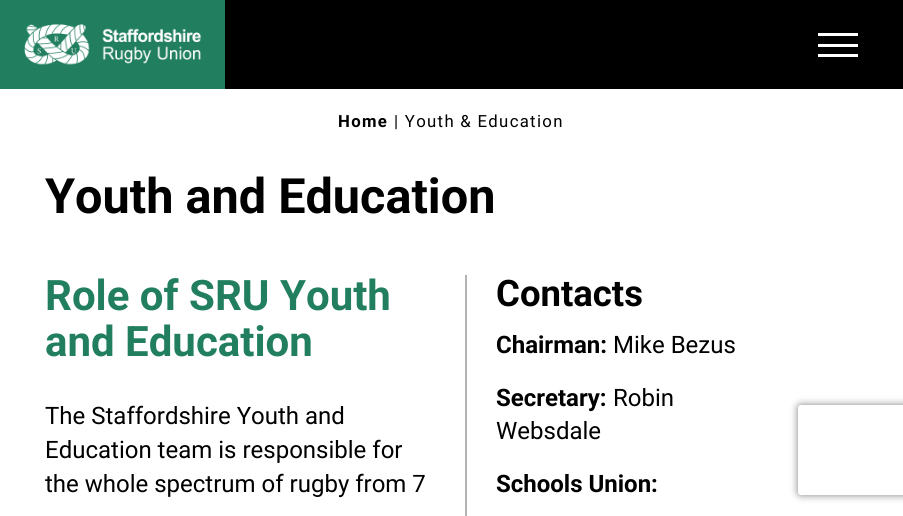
#include <cairo.h>
#include <math.h>
#include <stddef.h>


static void set_color(cairo_t *cr, unsigned color) {
    cairo_set_source_rgb(cr, (color >> 16) / 255.0, (color >> 8 & 255) / 255.0, (color & 255) / 255.0);
}

static void draw_text(cairo_t *cr, double x, double y, const char *s, const char *family, double size, int italic, int bold, unsigned color) {
    cairo_select_font_face(cr, family, italic ? CAIRO_FONT_SLANT_ITALIC : CAIRO_FONT_SLANT_NORMAL,
        bold ? CAIRO_FONT_WEIGHT_BOLD : CAIRO_FONT_WEIGHT_NORMAL);
    cairo_set_font_size(cr, size);
    set_color(cr, color);
    cairo_move_to(cr, x, y);
    cairo_show_text(cr, s);
}

static void draw_spaced(cairo_t *cr, double x, double y, const char *s, double letter, double word) {
    cairo_move_to(cr, x, y);
    while (*s) {
        char ch[5] = {0};
        int n = 0;
        do ch[n++] = *s++; while ((*s & 0xC0) == 0x80);
        cairo_show_text(cr, ch);
        cairo_rel_move_to(cr, letter + word * (*ch == ' '), 0);
    }
}

static void fill_rect(cairo_t *cr, double x, double y, double w, double h, unsigned color) {
    set_color(cr, color);
    cairo_rectangle(cr, x, y, w, h);
    cairo_fill(cr);
}

static void rounded_rect(cairo_t *cr, double x, double y, double w, double h, double r) {
    cairo_new_sub_path(cr);
    cairo_arc(cr, x + w - r, y + h - r, r, 0, M_PI / 2);
    cairo_arc(cr, x + r, y + h - r, r, M_PI / 2, M_PI);
    cairo_arc(cr, x + r, y + r, r, M_PI, 1.5 * M_PI);
    cairo_arc(cr, x + w - r, y + r, r, 1.5 * M_PI, 2 * M_PI);
    cairo_close_path(cr);
}

static void draw_shadow(cairo_t *cr, double x, double y, double w, double h, double r, double blur, double alpha) {
    cairo_push_group_with_content(cr, CAIRO_CONTENT_ALPHA);
    cairo_set_operator(cr, CAIRO_OPERATOR_SOURCE);
    for (int i = 15; i >= -15 && fmin(w, h) + blur * i / 3 > 0; i -= 2) {
        double e = blur * i / 6;
        cairo_set_source_rgba(cr, 0, 0, 0, alpha * erfc((i - 1) / 8.5) / 2);
        rounded_rect(cr, x - e, y - e, w + 2 * e, h + 2 * e, fmax(0, fmin(r + e + blur * .6, fmin(w, h) / 2 + e)));
        cairo_fill(cr);
    }
    cairo_pattern_t *soft = cairo_pop_group(cr);
    cairo_mask(cr, soft);
    cairo_pattern_destroy(soft);
}

static void draw_image(cairo_t *cr, const char *path, double x, double y, double w, double h) {
    cairo_surface_t *image = cairo_image_surface_create_from_png(path);
    cairo_save(cr);
    cairo_set_source_surface(cr, image, x, y);
    cairo_rectangle(cr, x, y, w, h);
    cairo_fill(cr);
    cairo_restore(cr);
    cairo_surface_destroy(image);
}

int main(void) {
    cairo_surface_t *surface = cairo_image_surface_create(CAIRO_FORMAT_RGB24, 903, 516);
    cairo_t *cr = cairo_create(surface);
    cairo_font_options_t *options = cairo_font_options_create();
    cairo_font_options_set_hint_metrics(options, CAIRO_HINT_METRICS_OFF);
    cairo_font_options_set_hint_style(options, CAIRO_HINT_STYLE_NONE);
    cairo_set_font_options(cr, options);
    cairo_set_miter_limit(cr, 4);
    set_color(cr, 0xFFFFFF);
    cairo_paint(cr);
    fill_rect(cr, 225, 0, 678, 89, 0x000000);
    fill_rect(cr, 0, 0, 225, 89, 0x217E5E);
    draw_image(cr, "assets/img1.png", 24, 24, 177, 41);
    fill_rect(cr, 818, 54, 40, 3, 0xFFFFFF);
    fill_rect(cr, 818, 33, 40, 3, 0xFFFFFF);
    fill_rect(cr, 818, 44, 40, 3, 0xFFFFFF);
    cairo_select_font_face(cr, "Roboto", CAIRO_FONT_SLANT_NORMAL, CAIRO_FONT_WEIGHT_BOLD);
    cairo_set_font_size(cr, 16.75);
    set_color(cr, 0x000000);
    draw_spaced(cr, 338, 127, "Home", 1.3, 0);
    cairo_select_font_face(cr, "Roboto", CAIRO_FONT_SLANT_NORMAL, CAIRO_FONT_WEIGHT_NORMAL);
    draw_spaced(cr, 394, 127, "| Youth & Education", 1.3, 0);
    draw_text(cr, 45, 213, "Youth and Education", "Roboto", 48.6, 0, 1, 0x000000);
    draw_text(cr, 45, 310, "Role of SRU Youth", "Roboto", 42, 0, 1, 0x217E5E);
    draw_text(cr, 45, 356, "and Education", "Roboto", 42, 0, 1, 0x217E5E);
    draw_text(cr, 45, 424, "The Staffordshire Youth and", "Roboto", 24, 0, 0, 0x000000);
    draw_text(cr, 45, 458, "Education team is responsible for", "Roboto", 24, 0, 0, 0x000000);
    draw_text(cr, 45, 492, "the whole spectrum of rugby from 7", "Roboto", 24, 0, 0, 0x000000);
    fill_rect(cr, 465, 275, 2, 241, 0xB3B3B3);
    draw_text(cr, 496, 306, "Contacts", "Roboto", 36.5, 0, 1, 0x000000);
    draw_text(cr, 496, 353, "Chairman:", "Roboto", 24, 0, 1, 0x000000);
    draw_text(cr, 613, 353, "Mike Bezus", "Roboto", 24, 0, 0, 0x000000);
    draw_text(cr, 496, 406, "Secretary:", "Roboto", 24, 0, 1, 0x000000);
    draw_text(cr, 613, 406, "Robin", "Roboto", 24, 0, 0, 0x000000);
    draw_text(cr, 496, 439, "Websdale", "Roboto", 24, 0, 0, 0x000000);
    draw_text(cr, 496, 492, "Schools Union:", "Roboto", 24, 0, 1, 0x000000);
    cairo_save(cr);
    cairo_set_fill_rule(cr, CAIRO_FILL_RULE_EVEN_ODD);
    cairo_new_path(cr);
    cairo_move_to(cr, 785, 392);
    cairo_line_to(cr, 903, 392);
    cairo_line_to(cr, 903, 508);
    cairo_line_to(cr, 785, 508);
    cairo_close_path(cr);
    cairo_move_to(cr, 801, 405);
    cairo_line_to(cr, 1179, 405);
    cairo_curve_to(cr, 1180.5, 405, 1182, 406.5, 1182, 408);
    cairo_line_to(cr, 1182, 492);
    cairo_curve_to(cr, 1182, 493.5, 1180.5, 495, 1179, 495);
    cairo_line_to(cr, 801, 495);
    cairo_curve_to(cr, 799.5, 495, 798, 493.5, 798, 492);
    cairo_line_to(cr, 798, 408);
    cairo_curve_to(cr, 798, 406.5, 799.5, 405, 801, 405);
    cairo_close_path(cr);
    cairo_clip(cr);
    set_color(cr, 0x808080);
    draw_shadow(cr, 798, 405, 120, 90, 3, 4, 1);
    cairo_restore(cr);
    cairo_surface_write_to_png(surface, "output.png");
    cairo_font_options_destroy(options);
    cairo_destroy(cr);
    cairo_surface_destroy(surface);
    return 0;
}
